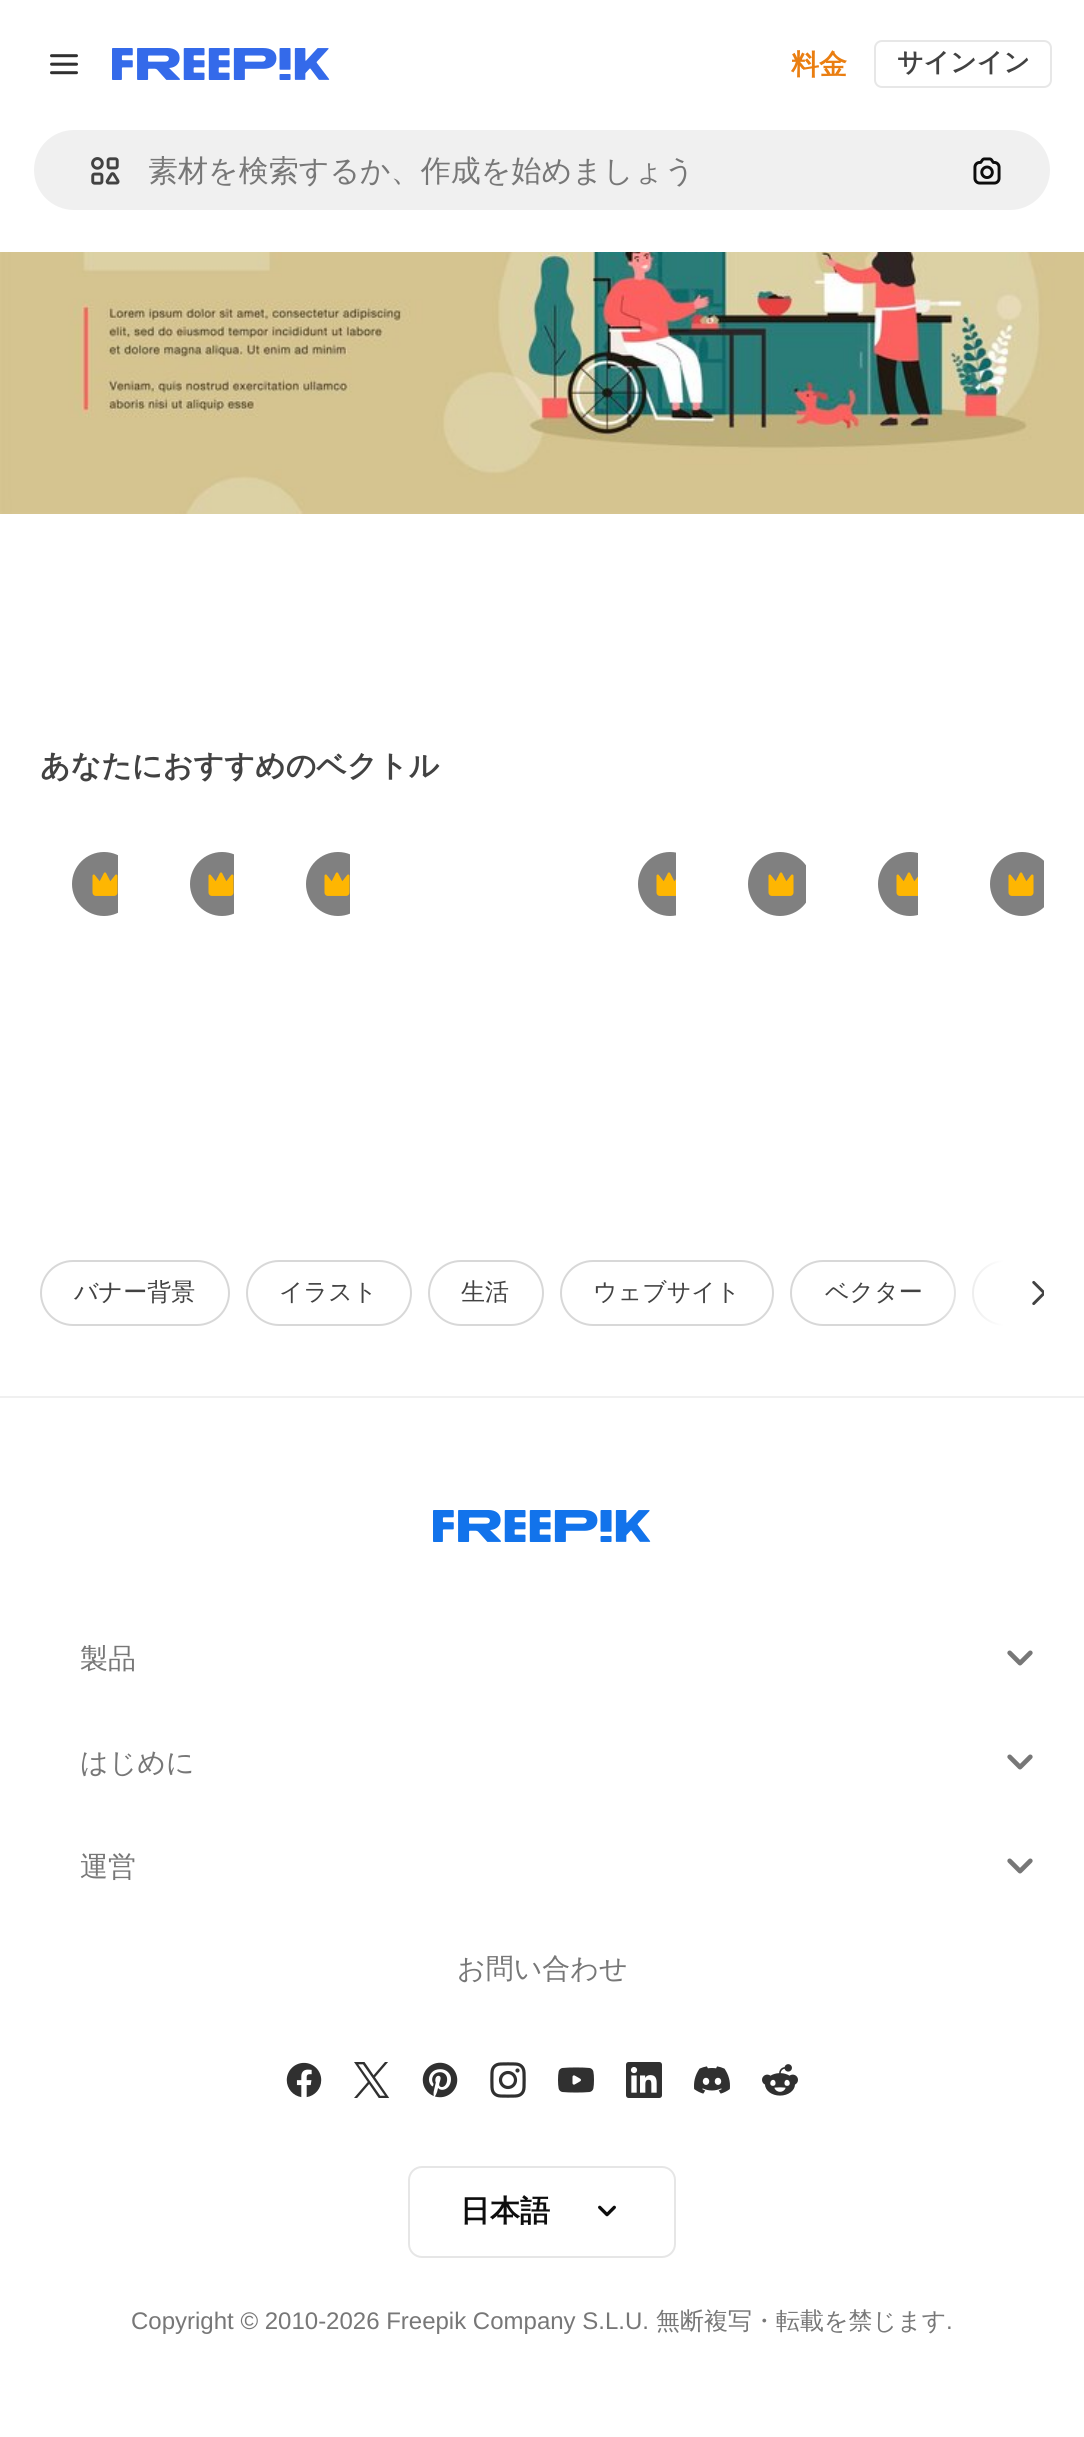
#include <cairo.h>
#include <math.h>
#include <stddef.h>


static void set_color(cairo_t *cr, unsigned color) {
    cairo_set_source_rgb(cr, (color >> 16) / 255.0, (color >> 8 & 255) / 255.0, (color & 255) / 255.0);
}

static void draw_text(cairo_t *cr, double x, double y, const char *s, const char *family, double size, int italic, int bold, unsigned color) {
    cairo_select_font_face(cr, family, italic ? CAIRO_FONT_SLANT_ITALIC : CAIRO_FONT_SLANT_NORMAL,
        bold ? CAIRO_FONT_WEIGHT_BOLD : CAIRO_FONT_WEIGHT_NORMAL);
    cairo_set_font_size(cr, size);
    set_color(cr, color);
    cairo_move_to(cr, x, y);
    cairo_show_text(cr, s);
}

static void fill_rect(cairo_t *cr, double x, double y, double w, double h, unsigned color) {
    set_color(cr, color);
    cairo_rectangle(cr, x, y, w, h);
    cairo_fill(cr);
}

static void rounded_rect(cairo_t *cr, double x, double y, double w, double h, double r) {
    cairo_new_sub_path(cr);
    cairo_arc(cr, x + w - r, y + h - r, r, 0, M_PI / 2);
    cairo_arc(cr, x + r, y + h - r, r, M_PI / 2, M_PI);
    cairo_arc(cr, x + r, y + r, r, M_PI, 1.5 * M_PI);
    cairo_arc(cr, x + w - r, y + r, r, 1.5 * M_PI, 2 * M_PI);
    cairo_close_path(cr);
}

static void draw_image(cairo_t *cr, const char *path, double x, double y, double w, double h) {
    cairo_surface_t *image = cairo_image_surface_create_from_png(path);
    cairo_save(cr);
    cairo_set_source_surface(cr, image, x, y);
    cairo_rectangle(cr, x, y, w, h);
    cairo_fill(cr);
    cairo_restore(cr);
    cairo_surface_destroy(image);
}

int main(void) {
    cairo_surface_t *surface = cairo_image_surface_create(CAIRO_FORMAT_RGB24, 1084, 2437);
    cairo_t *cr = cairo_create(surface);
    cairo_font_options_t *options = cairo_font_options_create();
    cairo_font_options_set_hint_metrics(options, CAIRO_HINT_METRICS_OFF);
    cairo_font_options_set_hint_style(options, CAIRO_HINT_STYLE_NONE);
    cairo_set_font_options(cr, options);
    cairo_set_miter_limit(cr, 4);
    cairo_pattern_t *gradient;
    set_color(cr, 0xFFFFFF);
    cairo_paint(cr);
    draw_image(cr, "assets/img1.png", 50, 54, 28, 21);
    draw_image(cr, "assets/img2.png", 112, 48, 218, 32);
    draw_text(cr, 791, 74, "料金", "WenQuanYi Zen Hei", 28, 0, 1, 0xEA7E11);
    rounded_rect(cr, 875, 41, 176, 46, 7);
    set_color(cr, 0xE7E7E7);
    cairo_stroke(cr);
    draw_text(cr, 897, 71, "サインイン", "WenQuanYi Zen Hei", 26, 0, 1, 0x424242);
    set_color(cr, 0xF0F0F0);
    rounded_rect(cr, 33, 129, 1018, 82, 41);
    cairo_fill_preserve(cr);
    set_color(cr, 0xFFFFFF);
    cairo_stroke(cr);
    draw_image(cr, "assets/img3.png", 91, 157, 29, 28);
    draw_text(cr, 148, 181, "素材を検索するか、作成を始めましょう", "WenQuanYi Zen Hei Medium", 30, 0, 0, 0x777777);
    draw_image(cr, "assets/img4.png", 973, 157, 28, 28);
    draw_image(cr, "assets/img5.png", 0, 252, 1084, 262);
    draw_text(cr, 40, 776, "あなたにおすすめのベクトル", "WenQuanYi Zen Hei", 30, 0, 1, 0x424242);
    cairo_save(cr);
    rounded_rect(cr, 40, 820, 78, 400, 32);
    cairo_clip(cr);
    set_color(cr, 0x808080);
    cairo_arc(cr, 104, 884, 32, 0, 2 * M_PI);
    cairo_fill(cr);
    cairo_restore(cr);
    draw_image(cr, "assets/img6.png", 92, 872, 26, 24);
    cairo_save(cr);
    rounded_rect(cr, 158, 820, 76, 400, 32);
    cairo_clip(cr);
    set_color(cr, 0x808080);
    cairo_arc(cr, 222, 884, 32, 0, 2 * M_PI);
    cairo_fill(cr);
    cairo_restore(cr);
    draw_image(cr, "assets/img6.png", 208, 872, 26, 24);
    cairo_save(cr);
    rounded_rect(cr, 274, 820, 76, 400, 32);
    cairo_clip(cr);
    set_color(cr, 0x808080);
    cairo_arc(cr, 338, 884, 32, 0, 2 * M_PI);
    cairo_fill(cr);
    cairo_restore(cr);
    draw_image(cr, "assets/img6.png", 324, 872, 26, 24);
    cairo_save(cr);
    rounded_rect(cr, 606, 820, 70, 400, 32);
    cairo_clip(cr);
    set_color(cr, 0x808080);
    cairo_arc(cr, 670, 884, 32, 0, 2 * M_PI);
    cairo_fill(cr);
    cairo_restore(cr);
    draw_image(cr, "assets/img7.png", 656, 872, 20, 24);
    cairo_save(cr);
    rounded_rect(cr, 716, 820, 90, 400, 32);
    cairo_clip(cr);
    set_color(cr, 0x808080);
    cairo_arc(cr, 780, 884, 32, 0, 2 * M_PI);
    cairo_fill(cr);
    cairo_restore(cr);
    draw_image(cr, "assets/img6.png", 768, 872, 26, 24);
    cairo_save(cr);
    rounded_rect(cr, 846, 820, 72, 400, 32);
    cairo_clip(cr);
    set_color(cr, 0x808080);
    cairo_arc(cr, 910, 884, 32, 0, 2 * M_PI);
    cairo_fill(cr);
    cairo_restore(cr);
    draw_image(cr, "assets/img8.png", 896, 872, 22, 24);
    cairo_save(cr);
    rounded_rect(cr, 958, 820, 86, 400, 32);
    cairo_clip(cr);
    set_color(cr, 0x808080);
    cairo_arc(cr, 1022, 884, 32, 0, 2 * M_PI);
    cairo_fill(cr);
    cairo_restore(cr);
    draw_image(cr, "assets/img6.png", 1008, 872, 26, 24);
    rounded_rect(cr, 41, 1261, 188, 64, 32);
    set_color(cr, 0xD8D8D8);
    cairo_stroke(cr);
    draw_text(cr, 74, 1300, "バナー背景", "WenQuanYi Zen Hei Medium", 24, 0, 0, 0x424242);
    rounded_rect(cr, 247, 1261, 164, 64, 32);
    set_color(cr, 0xD8D8D8);
    cairo_stroke(cr);
    draw_text(cr, 279, 1300, "イラスト", "WenQuanYi Zen Hei Medium", 24, 0, 0, 0x424242);
    rounded_rect(cr, 429, 1261, 114, 64, 32);
    set_color(cr, 0xD8D8D8);
    cairo_stroke(cr);
    draw_text(cr, 461, 1300, "生活", "WenQuanYi Zen Hei Medium", 24, 0, 0, 0x424242);
    rounded_rect(cr, 561, 1261, 212, 64, 32);
    set_color(cr, 0xD8D8D8);
    cairo_stroke(cr);
    draw_text(cr, 593, 1300, "ウェブサイト", "WenQuanYi Zen Hei Medium", 24, 0, 0, 0x424242);
    rounded_rect(cr, 791, 1261, 164, 64, 32);
    set_color(cr, 0xD8D8D8);
    cairo_stroke(cr);
    draw_text(cr, 825, 1300, "ベクター", "WenQuanYi Zen Hei Medium", 24, 0, 0, 0x424242);
    cairo_save(cr);
    cairo_rectangle(cr, 40, 1260, 1004, 66);
    cairo_clip(cr);
    rounded_rect(cr, 973, 1261, 90, 64, 32);
    set_color(cr, 0xD8D8D8);
    cairo_stroke(cr);
    cairo_restore(cr);
    fill_rect(cr, 1004, 1260, 40, 66, 0xFFFFFF);
    gradient = cairo_pattern_create_linear(1004, 1293, 934, 1293);
    cairo_pattern_add_color_stop_rgba(gradient, 0, 1, 1, 1, 1);
    cairo_pattern_add_color_stop_rgba(gradient, 1, 1, 1, 1, 0);
    cairo_set_source(cr, gradient);
    cairo_pattern_destroy(gradient);
    cairo_rectangle(cr, 939, 1260, 65, 66);
    cairo_fill(cr);
    draw_image(cr, "assets/img9.png", 1032, 1280, 12, 26);
    fill_rect(cr, 0, 1396, 1084, 2, 0xF0F0F0);
    draw_image(cr, "assets/img10.png", 433, 1510, 218, 32);
    draw_text(cr, 80, 1668, "製品", "WenQuanYi Zen Hei Medium", 28, 0, 0, 0x777777);
    draw_image(cr, "assets/img11.png", 1007, 1650, 26, 16);
    draw_text(cr, 80, 1772, "はじめに", "WenQuanYi Zen Hei Medium", 28, 0, 0, 0x777777);
    draw_image(cr, "assets/img11.png", 1007, 1754, 26, 16);
    draw_text(cr, 80, 1876, "運営", "WenQuanYi Zen Hei Medium", 28, 0, 0, 0x777777);
    draw_image(cr, "assets/img11.png", 1007, 1858, 26, 16);
    draw_text(cr, 457, 1978, "お問い合わせ", "WenQuanYi Zen Hei Medium", 28, 0, 0, 0x777777);
    draw_image(cr, "assets/img12.png", 286, 2062, 36, 36);
    draw_image(cr, "assets/img13.png", 354, 2062, 36, 36);
    draw_image(cr, "assets/img14.png", 422, 2062, 36, 36);
    draw_image(cr, "assets/img15.png", 490, 2062, 36, 36);
    draw_image(cr, "assets/img16.png", 558, 2067, 36, 26);
    draw_image(cr, "assets/img17.png", 626, 2062, 36, 36);
    draw_image(cr, "assets/img18.png", 694, 2066, 36, 28);
    draw_image(cr, "assets/img19.png", 762, 2064, 36, 32);
    rounded_rect(cr, 409, 2167, 266, 90, 13);
    set_color(cr, 0xE6E6E6);
    cairo_stroke(cr);
    draw_text(cr, 460, 2221, "日本語", "WenQuanYi Zen Hei", 30, 0, 1, 0x0D0D0D);
    draw_image(cr, "assets/img20.png", 598, 2205, 18, 12);
    draw_text(cr, 131, 2329, "Copyright © 2010-2026 Freepik Company S.L.U.", "Liberation Sans", 24, 0, 0, 0x777777);
    draw_text(cr, 656, 2329, "無断複写・転載を禁じます", "WenQuanYi Zen Hei Medium", 24, 0, 0, 0x777777);
    draw_text(cr, 946, 2329, ".", "Liberation Sans", 24, 0, 0, 0x777777);
    cairo_surface_write_to_png(surface, "output.png");
    cairo_font_options_destroy(options);
    cairo_destroy(cr);
    cairo_surface_destroy(surface);
    return 0;
}
